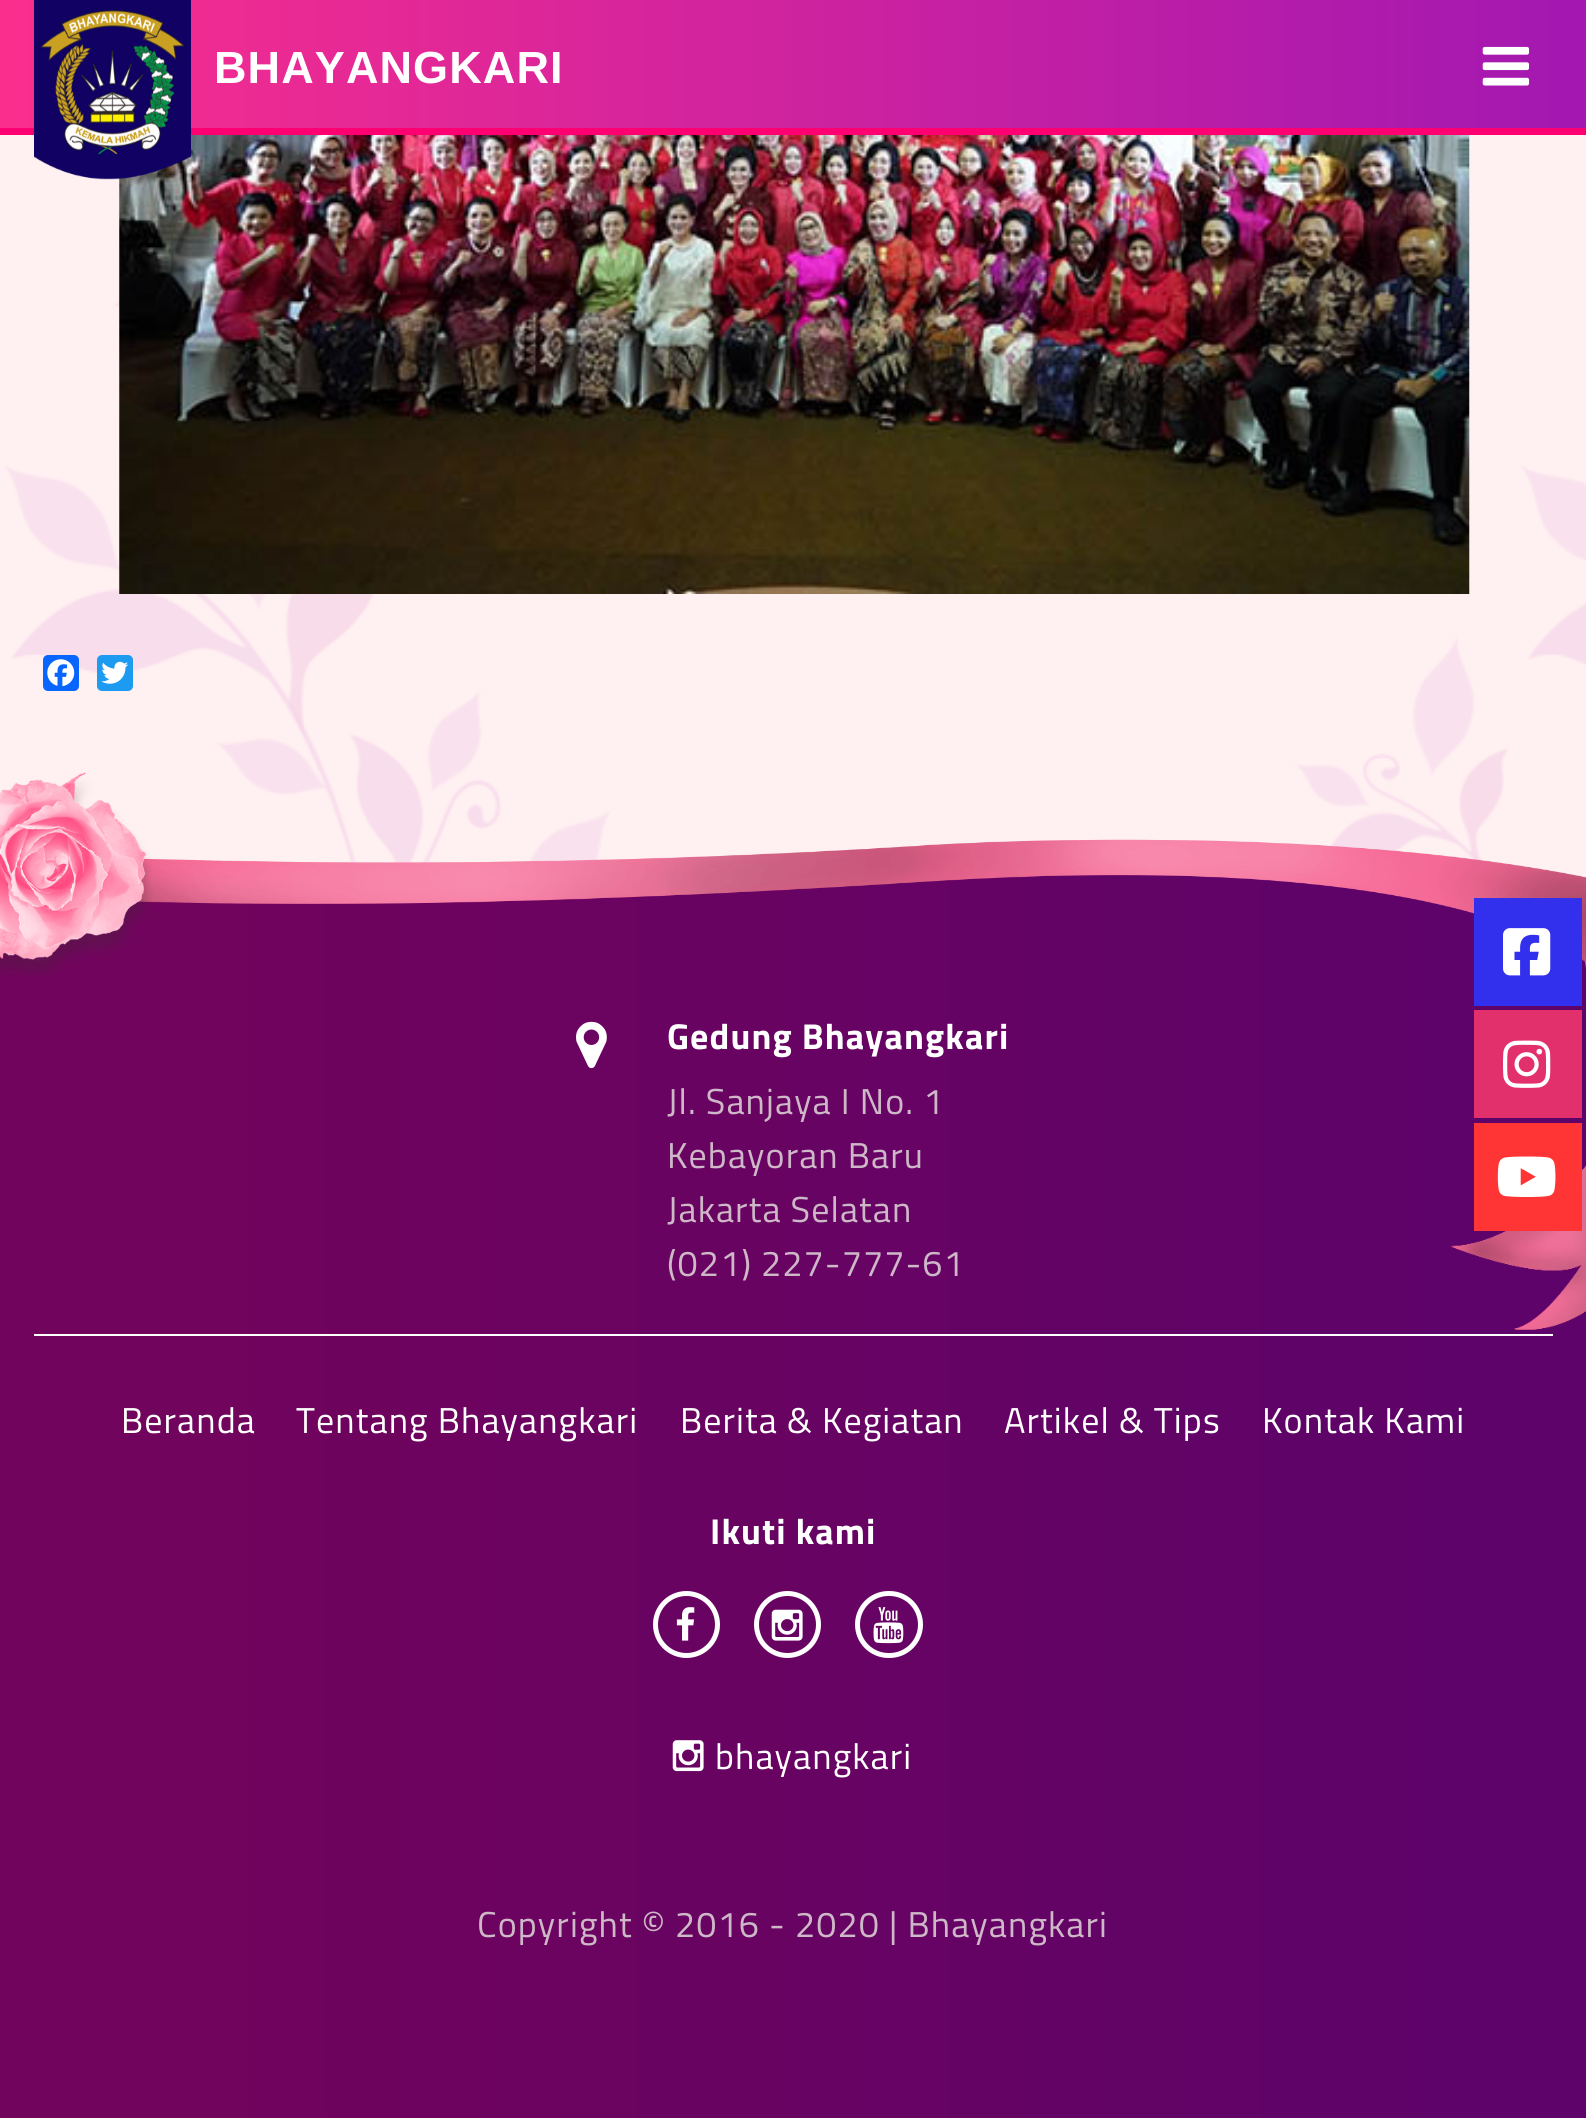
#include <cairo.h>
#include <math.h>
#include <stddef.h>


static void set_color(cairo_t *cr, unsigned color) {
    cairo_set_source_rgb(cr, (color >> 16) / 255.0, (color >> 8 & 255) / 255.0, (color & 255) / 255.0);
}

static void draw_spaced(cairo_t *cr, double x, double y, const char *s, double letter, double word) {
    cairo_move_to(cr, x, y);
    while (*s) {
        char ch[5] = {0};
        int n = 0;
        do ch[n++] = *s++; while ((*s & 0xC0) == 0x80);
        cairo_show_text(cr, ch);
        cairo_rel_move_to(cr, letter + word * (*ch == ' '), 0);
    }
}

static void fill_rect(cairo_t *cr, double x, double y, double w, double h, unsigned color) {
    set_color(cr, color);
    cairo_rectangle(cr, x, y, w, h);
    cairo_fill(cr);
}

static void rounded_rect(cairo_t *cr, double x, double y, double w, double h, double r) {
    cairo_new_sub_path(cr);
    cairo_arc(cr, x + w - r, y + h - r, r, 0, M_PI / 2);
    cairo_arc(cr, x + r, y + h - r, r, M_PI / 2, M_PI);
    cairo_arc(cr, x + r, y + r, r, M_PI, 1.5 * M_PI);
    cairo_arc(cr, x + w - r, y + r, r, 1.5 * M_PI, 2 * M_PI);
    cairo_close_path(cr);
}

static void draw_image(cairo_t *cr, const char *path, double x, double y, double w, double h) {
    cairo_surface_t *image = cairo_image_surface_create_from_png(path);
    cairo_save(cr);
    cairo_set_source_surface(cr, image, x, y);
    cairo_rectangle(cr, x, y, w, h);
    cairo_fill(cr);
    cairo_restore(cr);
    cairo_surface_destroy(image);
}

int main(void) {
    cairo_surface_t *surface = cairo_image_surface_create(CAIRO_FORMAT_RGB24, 1586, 2118);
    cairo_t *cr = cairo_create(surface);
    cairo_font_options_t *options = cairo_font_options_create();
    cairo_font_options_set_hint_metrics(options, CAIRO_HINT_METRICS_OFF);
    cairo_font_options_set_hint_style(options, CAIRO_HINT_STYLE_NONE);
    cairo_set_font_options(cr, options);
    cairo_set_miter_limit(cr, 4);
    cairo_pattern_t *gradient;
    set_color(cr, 0xFFF0F1);
    cairo_paint(cr);
    draw_image(cr, "assets/img1.png", 5, 298, 1581, 565);
    gradient = cairo_pattern_create_linear(1586, 64, 0, 64);
    cairo_pattern_add_color_stop_rgba(gradient, 0, 0.639, 0.094, 0.694, 1);
    cairo_pattern_add_color_stop_rgba(gradient, 1, 0.98, 0.18, 0.553, 1);
    cairo_set_source(cr, gradient);
    cairo_pattern_destroy(gradient);
    cairo_rectangle(cr, 0, 0, 1586, 128);
    cairo_fill(cr);
    fill_rect(cr, 0, 128, 1586, 7, 0xFF0072);
    draw_image(cr, "assets/img4.png", 119, 135, 1351, 459);
    draw_image(cr, "assets/img2.png", 34, 0, 157, 180);
    cairo_select_font_face(cr, "Liberation Sans", CAIRO_FONT_SLANT_NORMAL, CAIRO_FONT_WEIGHT_BOLD);
    cairo_set_font_size(cr, 45);
    set_color(cr, 0xFFFFFF);
    draw_spaced(cr, 214, 83, "BHAYANGKARI", 1.1, 0);
    draw_image(cr, "assets/img3.png", 1482, 46, 48, 40);
    set_color(cr, 0x0866FF);
    rounded_rect(cr, 43, 655, 36, 36, 5);
    cairo_fill(cr);
    draw_image(cr, "assets/img5.png", 47, 659, 28, 28);
    set_color(cr, 0x1D9BF0);
    rounded_rect(cr, 97, 655, 36, 36, 5);
    cairo_fill(cr);
    draw_image(cr, "assets/img6.png", 101, 661, 28, 23);
    draw_image(cr, "assets/img7.png", 0, 875, 1586, 1243);
    draw_image(cr, "assets/img9.png", 137, 839, 1449, 124);
    draw_image(cr, "assets/img8.png", 0, 772, 152, 204);
    fill_rect(cr, 34, 1334, 1519, 2, 0xFFFFFF);
    draw_image(cr, "assets/img10.png", 576, 1021, 31, 48);
    cairo_select_font_face(cr, "Titillium Web", CAIRO_FONT_SLANT_NORMAL, CAIRO_FONT_WEIGHT_BOLD);
    cairo_set_font_size(cr, 36);
    draw_spaced(cr, 667, 1049, "Gedung Bhayangkari", 1.1, 0);
    cairo_select_font_face(cr, "Titillium Web", CAIRO_FONT_SLANT_NORMAL, CAIRO_FONT_WEIGHT_NORMAL);
    set_color(cr, 0xCEB8C8);
    draw_spaced(cr, 667, 1114, "Jl. Sanjaya I No. 1", 1.1, 0);
    draw_spaced(cr, 667, 1168, "Kebayoran Baru", 1.1, 0);
    draw_spaced(cr, 667, 1222, "Jakarta Selatan", 1.1, 0);
    draw_spaced(cr, 667, 1276, "(021) 227-777-61", 1.1, 0);
    set_color(cr, 0xFFFFFF);
    draw_spaced(cr, 121, 1433, "Beranda", 1.1, 0);
    draw_spaced(cr, 296, 1433, "Tentang Bhayangkari", 1.1, 0);
    draw_spaced(cr, 680, 1433, "Berita & Kegiatan", 1.1, 0);
    draw_spaced(cr, 1004, 1433, "Artikel & Tips", 1.1, 0);
    draw_spaced(cr, 1262, 1433, "Kontak Kami", 1.1, 0);
    cairo_select_font_face(cr, "Titillium Web", CAIRO_FONT_SLANT_NORMAL, CAIRO_FONT_WEIGHT_BOLD);
    draw_spaced(cr, 710, 1544, "Ikuti kami", 1.1, 0);
    cairo_new_path(cr);
    cairo_arc(cr, 686.5, 1624.5, 31, 0, 2 * M_PI);
    cairo_set_line_width(cr, 5);
    cairo_stroke(cr);
    draw_image(cr, "assets/img11.png", 676, 1607, 19, 34);
    cairo_arc(cr, 787.5, 1624.5, 31, 0, 2 * M_PI);
    cairo_stroke(cr);
    draw_image(cr, "assets/img12.png", 771, 1609, 32, 32);
    rounded_rect(cr, 857.5, 1593.5, 63, 62, 31);
    cairo_stroke(cr);
    draw_image(cr, "assets/img13.png", 873, 1607, 31, 37);
    draw_image(cr, "assets/img14.png", 672, 1740, 32, 32);
    cairo_select_font_face(cr, "Titillium Web", CAIRO_FONT_SLANT_NORMAL, CAIRO_FONT_WEIGHT_NORMAL);
    draw_spaced(cr, 715, 1769, "bhayangkari", 1.1, 0);
    set_color(cr, 0xCEB8C8);
    draw_spaced(cr, 477, 1937, "Copyright © 2016 - 2020 | Bhayangkari", 1.1, 0);
    draw_image(cr, "assets/img15.png", 1451, 1165, 135, 165);
    fill_rect(cr, 1474, 898, 108, 108, 0x322FED);
    draw_image(cr, "assets/img16.png", 1503, 928, 48, 48);
    fill_rect(cr, 1474, 1010, 108, 108, 0xE1306C);
    draw_image(cr, "assets/img17.png", 1503, 1040, 48, 48);
    fill_rect(cr, 1474, 1123, 108, 108, 0xFF3535);
    draw_image(cr, "assets/img18.png", 1497, 1156, 59, 41);
    cairo_surface_write_to_png(surface, "output.png");
    cairo_font_options_destroy(options);
    cairo_destroy(cr);
    cairo_surface_destroy(surface);
    return 0;
}
